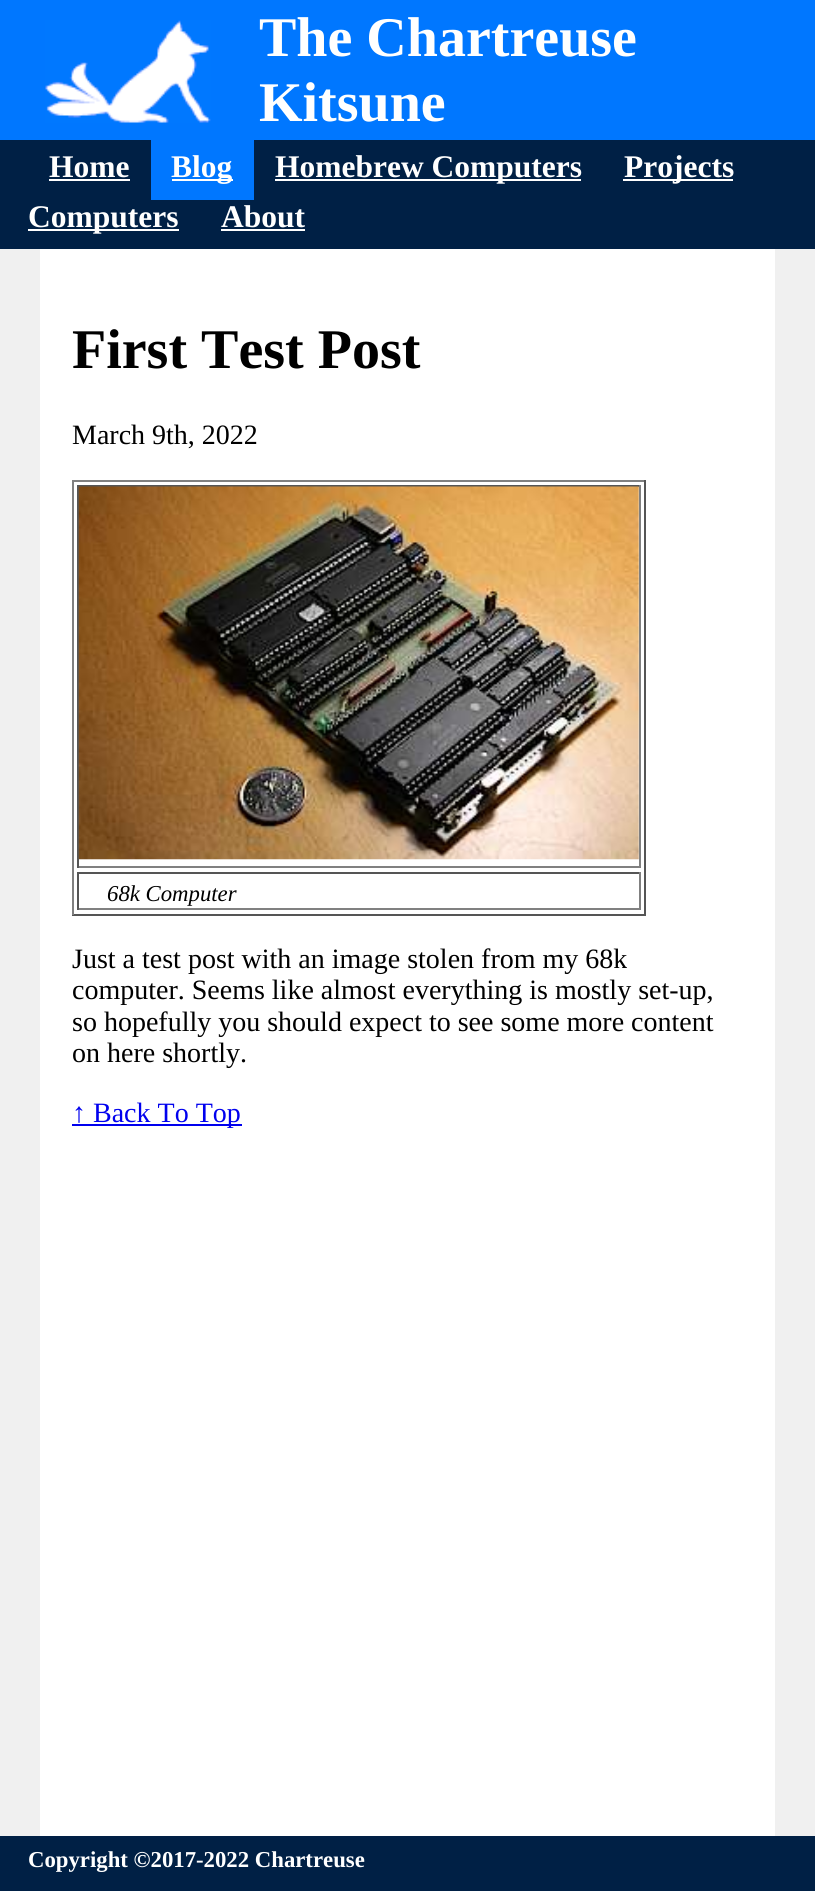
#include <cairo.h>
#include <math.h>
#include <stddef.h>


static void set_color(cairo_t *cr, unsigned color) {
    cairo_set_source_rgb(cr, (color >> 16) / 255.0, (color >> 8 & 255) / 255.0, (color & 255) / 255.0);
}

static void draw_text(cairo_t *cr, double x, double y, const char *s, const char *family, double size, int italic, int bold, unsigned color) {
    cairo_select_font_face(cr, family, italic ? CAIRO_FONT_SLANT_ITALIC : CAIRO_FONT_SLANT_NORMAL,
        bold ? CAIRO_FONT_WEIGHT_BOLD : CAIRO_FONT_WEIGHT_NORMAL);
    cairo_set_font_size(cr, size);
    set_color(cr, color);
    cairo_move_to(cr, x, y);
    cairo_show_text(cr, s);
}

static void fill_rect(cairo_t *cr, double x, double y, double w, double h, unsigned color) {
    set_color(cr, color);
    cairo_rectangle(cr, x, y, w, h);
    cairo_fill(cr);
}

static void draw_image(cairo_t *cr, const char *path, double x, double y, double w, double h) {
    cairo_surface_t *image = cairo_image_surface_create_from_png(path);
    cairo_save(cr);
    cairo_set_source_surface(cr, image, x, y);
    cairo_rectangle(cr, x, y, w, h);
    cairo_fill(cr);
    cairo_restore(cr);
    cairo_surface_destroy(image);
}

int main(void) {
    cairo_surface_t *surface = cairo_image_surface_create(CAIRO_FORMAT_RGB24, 815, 1891);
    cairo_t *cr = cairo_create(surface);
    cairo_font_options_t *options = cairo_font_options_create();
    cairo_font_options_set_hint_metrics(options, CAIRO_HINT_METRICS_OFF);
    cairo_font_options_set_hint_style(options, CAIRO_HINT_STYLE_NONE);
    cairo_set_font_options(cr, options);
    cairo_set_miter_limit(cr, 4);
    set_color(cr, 0xFFFFFF);
    cairo_paint(cr);
    fill_rect(cr, 0, 0, 815, 140, 0x0077FF);
    draw_image(cr, "assets/img1.png", 45, 20, 166, 103);
    draw_text(cr, 259, 56, "The Chartreuse", "Liberation Serif", 56, 0, 1, 0xFFFFFF);
    draw_text(cr, 259, 121, "Kitsune", "Liberation Serif", 56, 0, 1, 0xFFFFFF);
    fill_rect(cr, 0, 140, 815, 109, 0x002045);
    draw_text(cr, 49, 177, "Home", "Liberation Serif", 31.5, 0, 1, 0xFFFFFF);
    fill_rect(cr, 49, 179, 81, 2, 0xFFFFFF);
    fill_rect(cr, 151, 140, 103, 60, 0x0077FF);
    fill_rect(cr, 172, 179, 61, 2, 0xFFFFFF);
    draw_text(cr, 171, 177, "Blog", "Liberation Serif", 31.5, 0, 1, 0xFFFFFF);
    fill_rect(cr, 275, 179, 306, 2, 0xFFFFFF);
    draw_text(cr, 275, 177, "Homebrew Computers", "Liberation Serif", 31.5, 0, 1, 0xFFFFFF);
    fill_rect(cr, 623, 179, 110, 2, 0xFFFFFF);
    draw_text(cr, 624, 177, "Projects", "Liberation Serif", 31.5, 0, 1, 0xFFFFFF);
    fill_rect(cr, 28, 229, 151, 2, 0xFFFFFF);
    draw_text(cr, 28, 227, "Computers", "Liberation Serif", 31.5, 0, 1, 0xFFFFFF);
    draw_text(cr, 221, 227, "About", "Liberation Serif", 31.5, 0, 1, 0xFFFFFF);
    fill_rect(cr, 221, 229, 84, 2, 0xFFFFFF);
    fill_rect(cr, 0, 249, 40, 1587, 0xF0F0F0);
    draw_text(cr, 72, 368, "First Test Post", "Liberation Serif", 56, 0, 1, 0x000000);
    draw_text(cr, 72, 444, "March 9th, 2022", "Liberation Serif", 28, 0, 0, 0x000000);
    fill_rect(cr, 72, 480, 574, 2, 0x808080);
    fill_rect(cr, 644, 480, 2, 435, 0x555555);
    fill_rect(cr, 72, 914, 574, 2, 0x555555);
    fill_rect(cr, 72, 480, 2, 435, 0x808080);
    fill_rect(cr, 77, 485, 564, 2, 0x555555);
    fill_rect(cr, 639, 485, 2, 383, 0x808080);
    fill_rect(cr, 77, 866, 564, 2, 0x808080);
    fill_rect(cr, 77, 485, 2, 383, 0x555555);
    draw_image(cr, "assets/img2.png", 78, 486, 561, 374);
    fill_rect(cr, 77, 872, 564, 2, 0x555555);
    fill_rect(cr, 639, 872, 2, 38, 0x808080);
    fill_rect(cr, 77, 908, 564, 2, 0x808080);
    fill_rect(cr, 77, 872, 2, 38, 0x555555);
    draw_text(cr, 107, 901, "68k Computer", "Liberation Serif", 22.75, 1, 0, 0x000000);
    draw_text(cr, 72, 968, "Just a test post with an image stolen from my 68k", "Liberation Serif", 28, 0, 0, 0x000000);
    draw_text(cr, 72, 999, "computer. Seems like almost everything is mostly set-up,", "Liberation Serif", 28, 0, 0, 0x000000);
    draw_text(cr, 72, 1031, "so hopefully you should expect to see some more content", "Liberation Serif", 28, 0, 0, 0x000000);
    draw_text(cr, 72, 1062, "on here shortly.", "Liberation Serif", 28, 0, 0, 0x000000);
    fill_rect(cr, 72, 1124, 170, 2, 0x0000EE);
    draw_text(cr, 72, 1122, "↑ Back To Top", "Liberation Serif", 28, 0, 0, 0x0000EE);
    fill_rect(cr, 775, 249, 40, 1587, 0xF0F0F0);
    fill_rect(cr, 0, 1836, 815, 55, 0x002045);
    draw_text(cr, 28, 1867, "Copyright ©2017-2022 Chartreuse", "Liberation Serif", 22.75, 0, 1, 0xFFFFFF);
    cairo_surface_write_to_png(surface, "output.png");
    cairo_font_options_destroy(options);
    cairo_destroy(cr);
    cairo_surface_destroy(surface);
    return 0;
}
